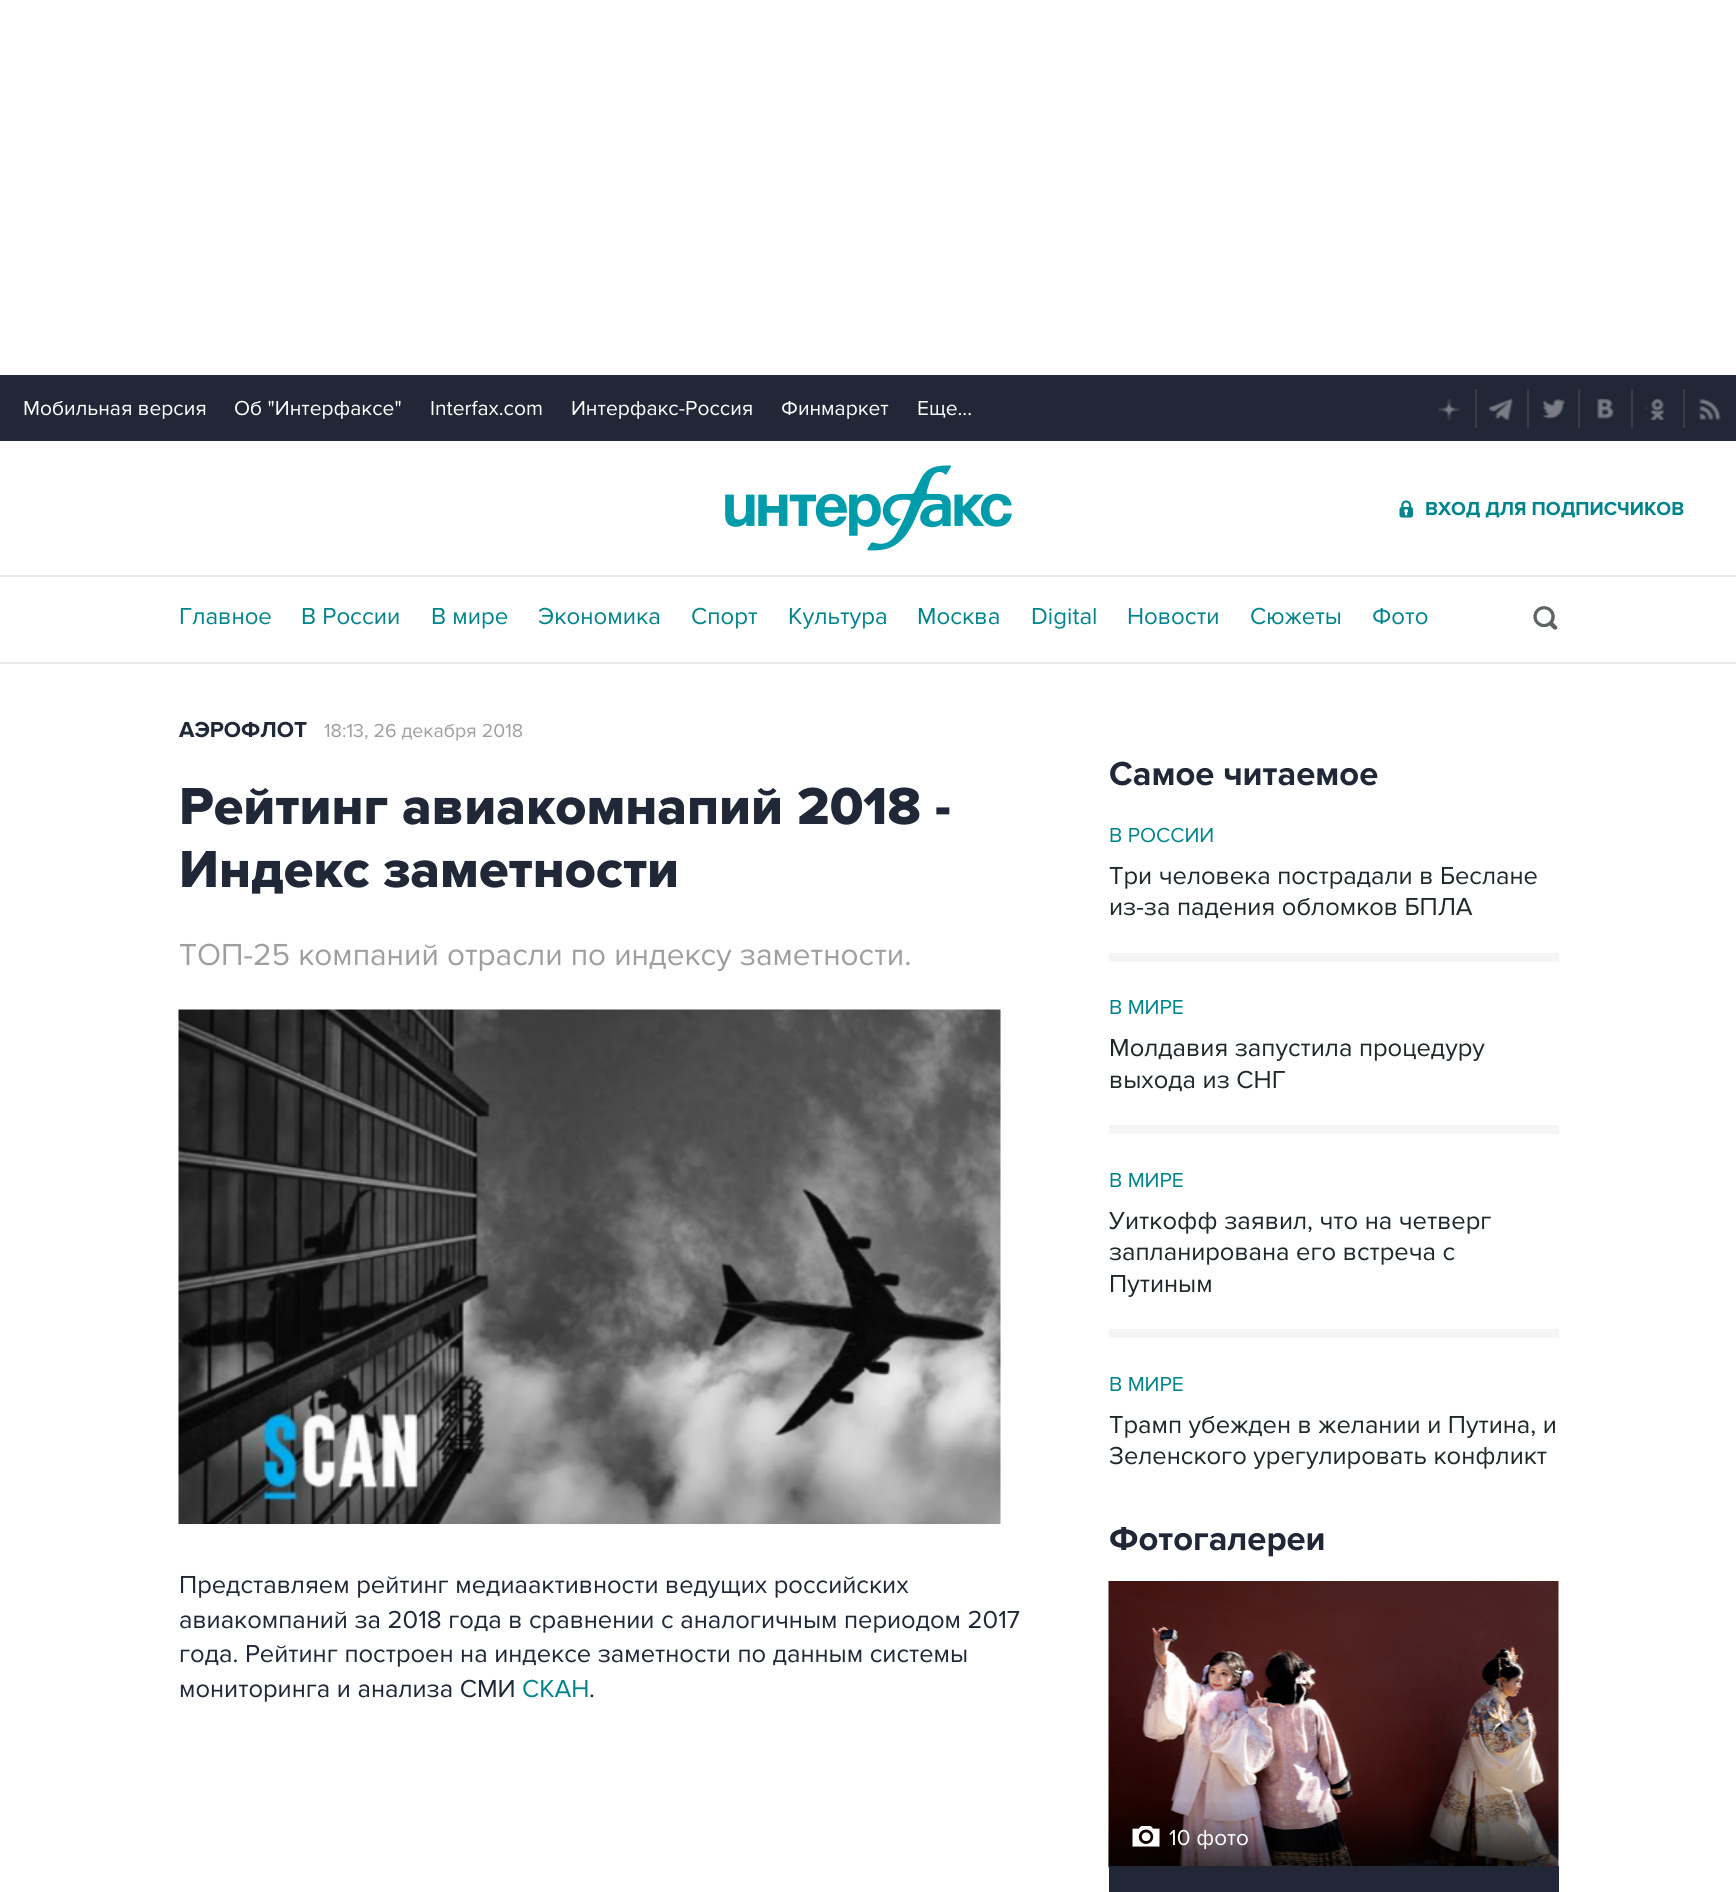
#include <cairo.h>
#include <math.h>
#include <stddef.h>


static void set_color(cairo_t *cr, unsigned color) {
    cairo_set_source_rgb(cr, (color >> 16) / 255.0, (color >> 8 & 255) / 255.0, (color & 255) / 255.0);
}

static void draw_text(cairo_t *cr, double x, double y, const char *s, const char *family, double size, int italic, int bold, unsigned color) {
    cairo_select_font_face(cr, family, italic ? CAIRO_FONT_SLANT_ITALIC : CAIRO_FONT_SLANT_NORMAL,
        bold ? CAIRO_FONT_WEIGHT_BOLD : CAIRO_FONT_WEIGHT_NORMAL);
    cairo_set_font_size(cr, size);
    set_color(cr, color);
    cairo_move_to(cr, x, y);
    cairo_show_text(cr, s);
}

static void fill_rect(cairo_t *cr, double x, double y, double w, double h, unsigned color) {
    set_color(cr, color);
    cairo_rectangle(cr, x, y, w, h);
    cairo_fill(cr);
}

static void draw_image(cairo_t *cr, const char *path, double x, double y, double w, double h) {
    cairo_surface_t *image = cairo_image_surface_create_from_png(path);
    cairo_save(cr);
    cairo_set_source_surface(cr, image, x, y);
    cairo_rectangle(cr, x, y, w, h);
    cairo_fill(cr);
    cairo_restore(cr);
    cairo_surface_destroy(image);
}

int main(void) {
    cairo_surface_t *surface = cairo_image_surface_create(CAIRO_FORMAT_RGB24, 1736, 1892);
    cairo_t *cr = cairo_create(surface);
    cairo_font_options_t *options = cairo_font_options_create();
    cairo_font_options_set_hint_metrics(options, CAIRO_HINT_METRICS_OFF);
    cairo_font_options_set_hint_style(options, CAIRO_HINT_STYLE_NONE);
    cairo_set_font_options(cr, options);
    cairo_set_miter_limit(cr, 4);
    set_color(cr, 0xFFFFFF);
    cairo_paint(cr);
    fill_rect(cr, 0, 662, 1736, 2, 0xE8E9EB);
    fill_rect(cr, 0, 375, 1736, 66, 0x212736);
    draw_text(cr, 23, 415, "Мобильная версия", "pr", 21, 0, 0, 0xFFFFFF);
    draw_text(cr, 234, 415, "Об \"Интерфаксе\"", "pr", 21, 0, 0, 0xFFFFFF);
    draw_text(cr, 430, 415, "Interfax.com", "pr", 21, 0, 0, 0xFFFFFF);
    draw_text(cr, 571, 415, "Интерфакс-Россия", "pr", 21, 0, 0, 0xFFFFFF);
    draw_text(cr, 781, 415, "Финмаркет", "pr", 21, 0, 0, 0xFFFFFF);
    draw_text(cr, 917, 415, "Еще...", "pr", 21, 0, 0, 0xFFFFFF);
    draw_image(cr, "assets/img1.png", 1438, 399, 22, 21);
    fill_rect(cr, 1475, 389, 2, 39, 0x383D4A);
    draw_image(cr, "assets/img2.png", 1489, 398, 24, 22);
    fill_rect(cr, 1527, 389, 2, 39, 0x383D4A);
    draw_image(cr, "assets/img3.png", 1543, 399, 22, 20);
    fill_rect(cr, 1578, 389, 2, 39, 0x383D4A);
    draw_image(cr, "assets/img4.png", 1597, 398, 17, 21);
    fill_rect(cr, 1631, 389, 2, 39, 0x383D4A);
    draw_image(cr, "assets/img5.png", 1645, 398, 20, 22);
    fill_rect(cr, 1683, 389, 2, 39, 0x383D4A);
    draw_image(cr, "assets/img6.png", 1699, 398, 22, 22);
    fill_rect(cr, 0, 575, 1736, 2, 0xE8E9EB);
    draw_image(cr, "assets/img7.png", 725, 465, 287, 86);
    draw_image(cr, "assets/img8.png", 1399, 500, 14, 18);
    draw_text(cr, 1425, 515, "ВХОД ДЛЯ ПОДПИСЧИКОВ", "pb", 19.5, 0, 1, 0x00848C);
    draw_text(cr, 179, 624, "Главное", "pr", 24, 0, 0, 0x00848C);
    draw_text(cr, 301, 624, "В России", "pr", 24, 0, 0, 0x00848C);
    draw_text(cr, 431, 624, "В мире", "pr", 24, 0, 0, 0x00848C);
    draw_text(cr, 538, 624, "Экономика", "pr", 24, 0, 0, 0x00848C);
    draw_text(cr, 691, 624, "Спорт", "pr", 24, 0, 0, 0x00848C);
    draw_text(cr, 788, 624, "Культура", "pr", 24, 0, 0, 0x00848C);
    draw_text(cr, 917, 624, "Москва", "pr", 24, 0, 0, 0x00848C);
    draw_text(cr, 1031, 624, "Digital", "pr", 24, 0, 0, 0x00848C);
    draw_text(cr, 1127, 624, "Новости", "pr", 24, 0, 0, 0x00848C);
    draw_text(cr, 1250, 624, "Сюжеты", "pr", 24, 0, 0, 0x00848C);
    draw_text(cr, 1372, 624, "Фото", "pr", 24, 0, 0, 0x00848C);
    draw_image(cr, "assets/img9.png", 1533, 606, 25, 24);
    draw_text(cr, 179, 737, "АЭРОФЛОТ", "pb", 22.5, 0, 1, 0x202736);
    draw_text(cr, 324, 737, "18:13, 26 декабря 2018", "pr", 19.5, 0, 0, 0x9F9F9F);
    draw_text(cr, 179, 824, "Рейтинг авиакомнапий 2018 -", "Proxima Nova ExtraBold", 54, 0, 0, 0x202736);
    draw_text(cr, 179, 887, "Индекс заметности", "Proxima Nova ExtraBold", 54, 0, 0, 0x202736);
    draw_text(cr, 179, 965, "ТОП-25 компаний отрасли по индексу заметности.", "pr", 31.5, 0, 0, 0x9F9F9F);
    draw_image(cr, "assets/img10.png", 178, 1009, 823, 515);
    draw_text(cr, 179, 1593, "Представляем рейтинг медиаактивности ведущих российских", "pr", 25.5, 0, 0, 0x202736);
    draw_text(cr, 179, 1628, "авиакомпаний за 2018 года в сравнении с аналогичным периодом 2017", "pr", 25.5, 0, 0, 0x202736);
    draw_text(cr, 179, 1662, "года. Рейтинг построен на индексе заметности по данным системы", "pr", 25.5, 0, 0, 0x202736);
    draw_text(cr, 179, 1697, "мониторинга и анализа СМИ", "pr", 25.5, 0, 0, 0x202736);
    draw_text(cr, 522, 1697, "СКАН", "pr", 25.5, 0, 0, 0x00848C);
    draw_text(cr, 589, 1697, ".", "pr", 25.5, 0, 0, 0x202736);
    draw_text(cr, 1109, 785, "Самое читаемое", "pb", 34.5, 0, 1, 0x202736);
    draw_text(cr, 1109, 842, "В РОССИИ", "pr", 21, 0, 0, 0x00848C);
    draw_text(cr, 1109, 884, "Три человека пострадали в Беслане", "pr", 25.5, 0, 0, 0x1F2829);
    draw_text(cr, 1109, 915, "из-за падения обломков БПЛА", "pr", 25.5, 0, 0, 0x1F2829);
    fill_rect(cr, 1109, 953, 450, 9, 0xF5F5F5);
    draw_text(cr, 1109, 1014, "В МИРЕ", "pr", 21, 0, 0, 0x00848C);
    draw_text(cr, 1109, 1056, "Молдавия запустила процедуру", "pr", 25.5, 0, 0, 0x1F2829);
    draw_text(cr, 1109, 1088, "выхода из СНГ", "pr", 25.5, 0, 0, 0x1F2829);
    fill_rect(cr, 1109, 1125, 450, 9, 0xF5F5F5);
    draw_text(cr, 1109, 1187, "В МИРЕ", "pr", 21, 0, 0, 0x00848C);
    draw_text(cr, 1109, 1229, "Уиткофф заявил, что на четверг", "pr", 25.5, 0, 0, 0x1F2829);
    draw_text(cr, 1109, 1260, "запланирована его встреча с", "pr", 25.5, 0, 0, 0x1F2829);
    draw_text(cr, 1109, 1292, "Путиным", "pr", 25.5, 0, 0, 0x1F2829);
    fill_rect(cr, 1109, 1329, 450, 9, 0xF5F5F5);
    draw_text(cr, 1109, 1391, "В МИРЕ", "pr", 21, 0, 0, 0x00848C);
    draw_text(cr, 1109, 1433, "Трамп убежден в желании и Путина, и", "pr", 25.5, 0, 0, 0x1F2829);
    draw_text(cr, 1109, 1464, "Зеленского урегулировать конфликт", "pr", 25.5, 0, 0, 0x1F2829);
    draw_text(cr, 1109, 1550, "Фотогалереи", "pb", 34.5, 0, 1, 0x202736);
    draw_image(cr, "assets/img11.png", 1108, 1581, 451, 287);
    fill_rect(cr, 1109, 1866, 450, 26, 0x212737);
    draw_image(cr, "assets/img12.png", 1108, 1802, 451, 64);
    draw_image(cr, "assets/img13.png", 1132, 1826, 28, 21);
    draw_text(cr, 1169, 1845, "10 фото", "pr", 22.5, 0, 0, 0xFFFFFF);
    cairo_surface_write_to_png(surface, "output.png");
    cairo_font_options_destroy(options);
    cairo_destroy(cr);
    cairo_surface_destroy(surface);
    return 0;
}
